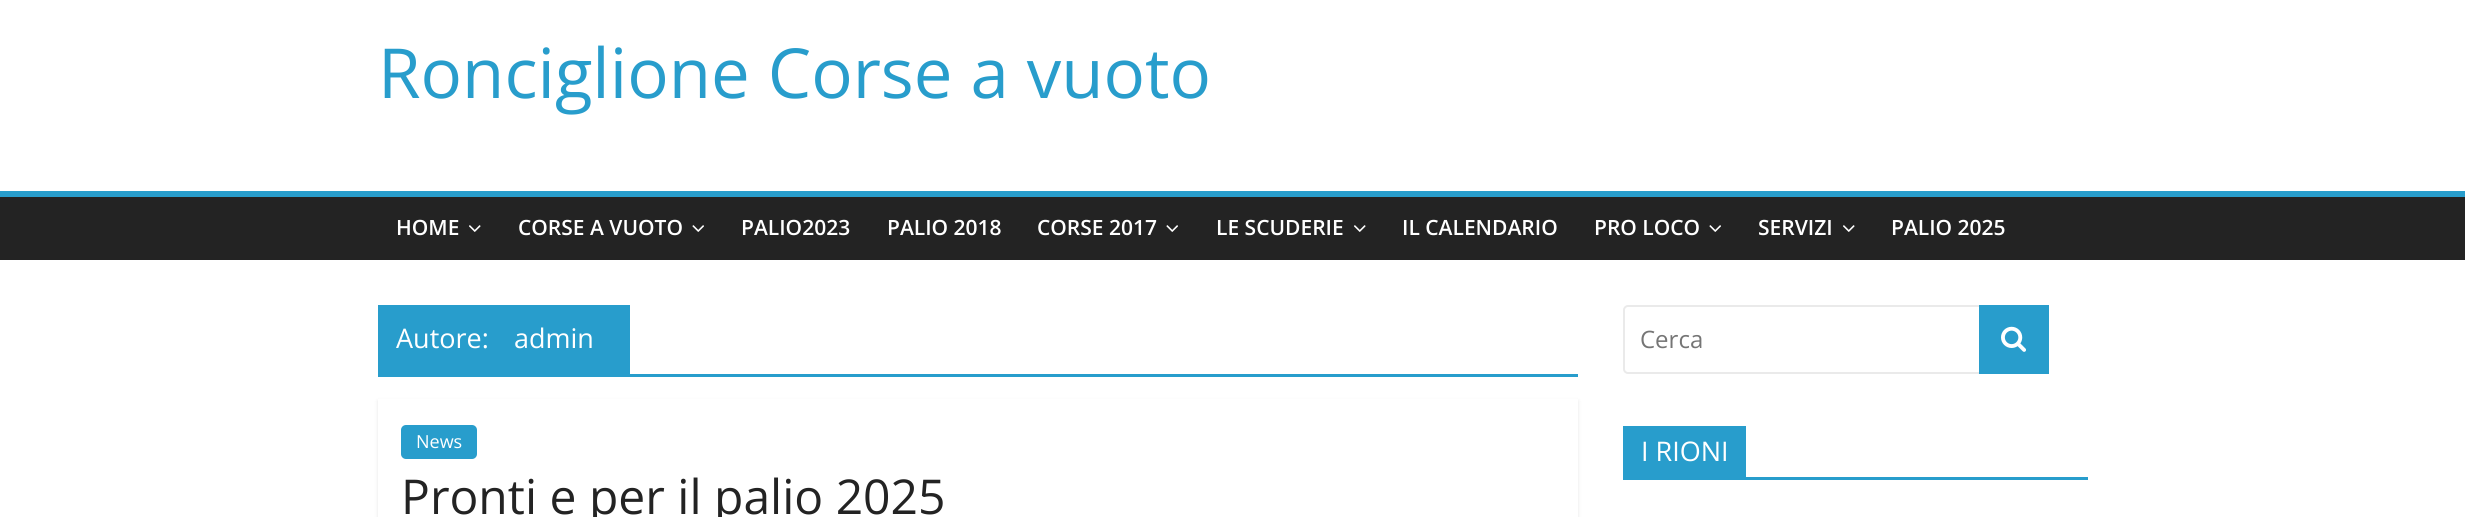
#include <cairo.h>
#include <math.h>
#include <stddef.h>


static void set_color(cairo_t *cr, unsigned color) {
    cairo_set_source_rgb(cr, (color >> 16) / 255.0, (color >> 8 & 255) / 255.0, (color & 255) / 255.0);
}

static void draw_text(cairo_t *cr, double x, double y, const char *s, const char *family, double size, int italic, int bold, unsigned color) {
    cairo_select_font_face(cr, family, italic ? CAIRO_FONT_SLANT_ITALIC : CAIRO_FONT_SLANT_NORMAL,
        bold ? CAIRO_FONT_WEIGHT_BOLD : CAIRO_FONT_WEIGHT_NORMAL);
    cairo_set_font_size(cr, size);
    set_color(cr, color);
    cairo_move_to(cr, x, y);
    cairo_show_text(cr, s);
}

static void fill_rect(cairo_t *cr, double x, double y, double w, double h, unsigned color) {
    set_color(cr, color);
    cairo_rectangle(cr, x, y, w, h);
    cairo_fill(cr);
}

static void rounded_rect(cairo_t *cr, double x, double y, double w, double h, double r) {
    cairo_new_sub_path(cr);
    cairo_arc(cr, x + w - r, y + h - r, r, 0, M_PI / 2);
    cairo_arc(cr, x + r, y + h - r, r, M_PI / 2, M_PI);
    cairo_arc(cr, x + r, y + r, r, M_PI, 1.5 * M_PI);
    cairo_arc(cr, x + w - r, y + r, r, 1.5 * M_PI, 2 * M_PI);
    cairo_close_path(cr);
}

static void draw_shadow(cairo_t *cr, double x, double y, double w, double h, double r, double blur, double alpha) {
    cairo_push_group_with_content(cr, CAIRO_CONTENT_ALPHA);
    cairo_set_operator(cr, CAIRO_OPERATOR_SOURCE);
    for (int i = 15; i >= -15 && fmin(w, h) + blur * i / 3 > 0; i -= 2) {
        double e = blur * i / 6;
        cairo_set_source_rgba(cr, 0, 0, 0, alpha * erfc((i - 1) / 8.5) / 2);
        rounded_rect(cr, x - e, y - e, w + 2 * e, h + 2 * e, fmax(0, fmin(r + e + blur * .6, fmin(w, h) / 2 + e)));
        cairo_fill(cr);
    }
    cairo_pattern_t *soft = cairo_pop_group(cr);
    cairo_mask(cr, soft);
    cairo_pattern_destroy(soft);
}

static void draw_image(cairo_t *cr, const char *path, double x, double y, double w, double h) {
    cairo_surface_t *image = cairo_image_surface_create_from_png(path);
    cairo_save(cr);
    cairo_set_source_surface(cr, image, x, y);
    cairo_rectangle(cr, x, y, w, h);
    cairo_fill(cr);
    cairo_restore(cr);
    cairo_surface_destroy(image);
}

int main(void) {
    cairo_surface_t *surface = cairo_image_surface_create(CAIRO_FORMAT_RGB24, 2465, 517);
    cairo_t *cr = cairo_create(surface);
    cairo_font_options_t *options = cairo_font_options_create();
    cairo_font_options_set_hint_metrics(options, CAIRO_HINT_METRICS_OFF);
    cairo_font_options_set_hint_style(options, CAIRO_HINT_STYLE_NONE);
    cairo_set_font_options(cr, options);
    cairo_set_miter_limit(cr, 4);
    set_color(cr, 0xFFFFFF);
    cairo_paint(cr);
    draw_text(cr, 378, 98, "Ronciglione Corse a vuoto", "Open Sans", 69, 0, 0, 0x289DCC);
    fill_rect(cr, 0, 197, 2465, 63, 0x232323);
    fill_rect(cr, 0, 191, 2465, 6, 0x289DCC);
    draw_text(cr, 396, 235, "HOME", "Open Sans SemiBold", 21, 0, 0, 0xFFFFFF);
    draw_image(cr, "assets/img1.png", 469, 225, 12, 7);
    draw_text(cr, 518, 235, "CORSE A VUOTO", "Open Sans SemiBold", 21, 0, 0, 0xFFFFFF);
    draw_image(cr, "assets/img2.png", 692, 225, 12, 7);
    draw_text(cr, 741, 235, "PALIO2023", "Open Sans SemiBold", 21, 0, 0, 0xFFFFFF);
    draw_text(cr, 887, 235, "PALIO 2018", "Open Sans SemiBold", 21, 0, 0, 0xFFFFFF);
    draw_text(cr, 1037, 235, "CORSE 2017", "Open Sans SemiBold", 21, 0, 0, 0xFFFFFF);
    draw_image(cr, "assets/img2.png", 1166, 225, 12, 7);
    draw_text(cr, 1216, 235, "LE SCUDERIE", "Open Sans SemiBold", 21, 0, 0, 0xFFFFFF);
    draw_image(cr, "assets/img1.png", 1354, 225, 12, 7);
    draw_text(cr, 1402, 235, "IL CALENDARIO", "Open Sans SemiBold", 21, 0, 0, 0xFFFFFF);
    draw_text(cr, 1594, 235, "PRO LOCO", "Open Sans SemiBold", 21, 0, 0, 0xFFFFFF);
    draw_image(cr, "assets/img2.png", 1709, 225, 12, 7);
    draw_text(cr, 1758, 235, "SERVIZI", "Open Sans SemiBold", 21, 0, 0, 0xFFFFFF);
    draw_image(cr, "assets/img1.png", 1843, 225, 12, 7);
    draw_text(cr, 1891, 235, "PALIO 2025", "Open Sans SemiBold", 21, 0, 0, 0xFFFFFF);
    fill_rect(cr, 378, 374, 1200, 3, 0x289DCC);
    fill_rect(cr, 378, 305, 252, 69, 0x289DCC);
    draw_text(cr, 396, 348, "Autore:", "Open Sans", 27, 0, 0, 0xFFFFFF);
    draw_text(cr, 514, 348, "admin", "Open Sans", 27, 0, 0, 0xFFFFFF);
    cairo_save(cr);
    cairo_set_fill_rule(cr, CAIRO_FILL_RULE_EVEN_ODD);
    cairo_new_path(cr);
    cairo_move_to(cr, 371, 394);
    cairo_line_to(cr, 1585, 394);
    cairo_line_to(cr, 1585, 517);
    cairo_line_to(cr, 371, 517);
    cairo_close_path(cr);
    cairo_move_to(cr, 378, 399);
    cairo_line_to(cr, 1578, 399);
    cairo_line_to(cr, 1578, 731);
    cairo_line_to(cr, 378, 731);
    cairo_close_path(cr);
    cairo_clip(cr);
    set_color(cr, 0x000000);
    draw_shadow(cr, 378, 401, 1200, 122, 0, 2, 0.1);
    cairo_restore(cr);
    set_color(cr, 0x289DCC);
    rounded_rect(cr, 401, 425, 76, 34, 5);
    cairo_fill(cr);
    draw_text(cr, 416, 448, "News", "Open Sans", 18, 0, 0, 0xFFFFFF);
    draw_text(cr, 401, 514, "Pronti e per il palio 2025", "Open Sans", 48, 0, 0, 0x232323);
    rounded_rect(cr, 1624, 306, 376, 67, 4);
    set_color(cr, 0xEAEAEA);
    cairo_stroke(cr);
    draw_text(cr, 1640, 348, "Cerca", "Open Sans", 24, 0, 0, 0x757575);
    fill_rect(cr, 1979, 305, 70, 69, 0x289DCC);
    draw_image(cr, "assets/img3.png", 2001, 326, 25, 26);
    fill_rect(cr, 1623, 477, 465, 3, 0x289DCC);
    fill_rect(cr, 1623, 426, 123, 51, 0x289DCC);
    draw_text(cr, 1641, 461, "I RIONI", "Open Sans", 27, 0, 0, 0xFFFFFF);
    cairo_surface_write_to_png(surface, "output.png");
    cairo_font_options_destroy(options);
    cairo_destroy(cr);
    cairo_surface_destroy(surface);
    return 0;
}
